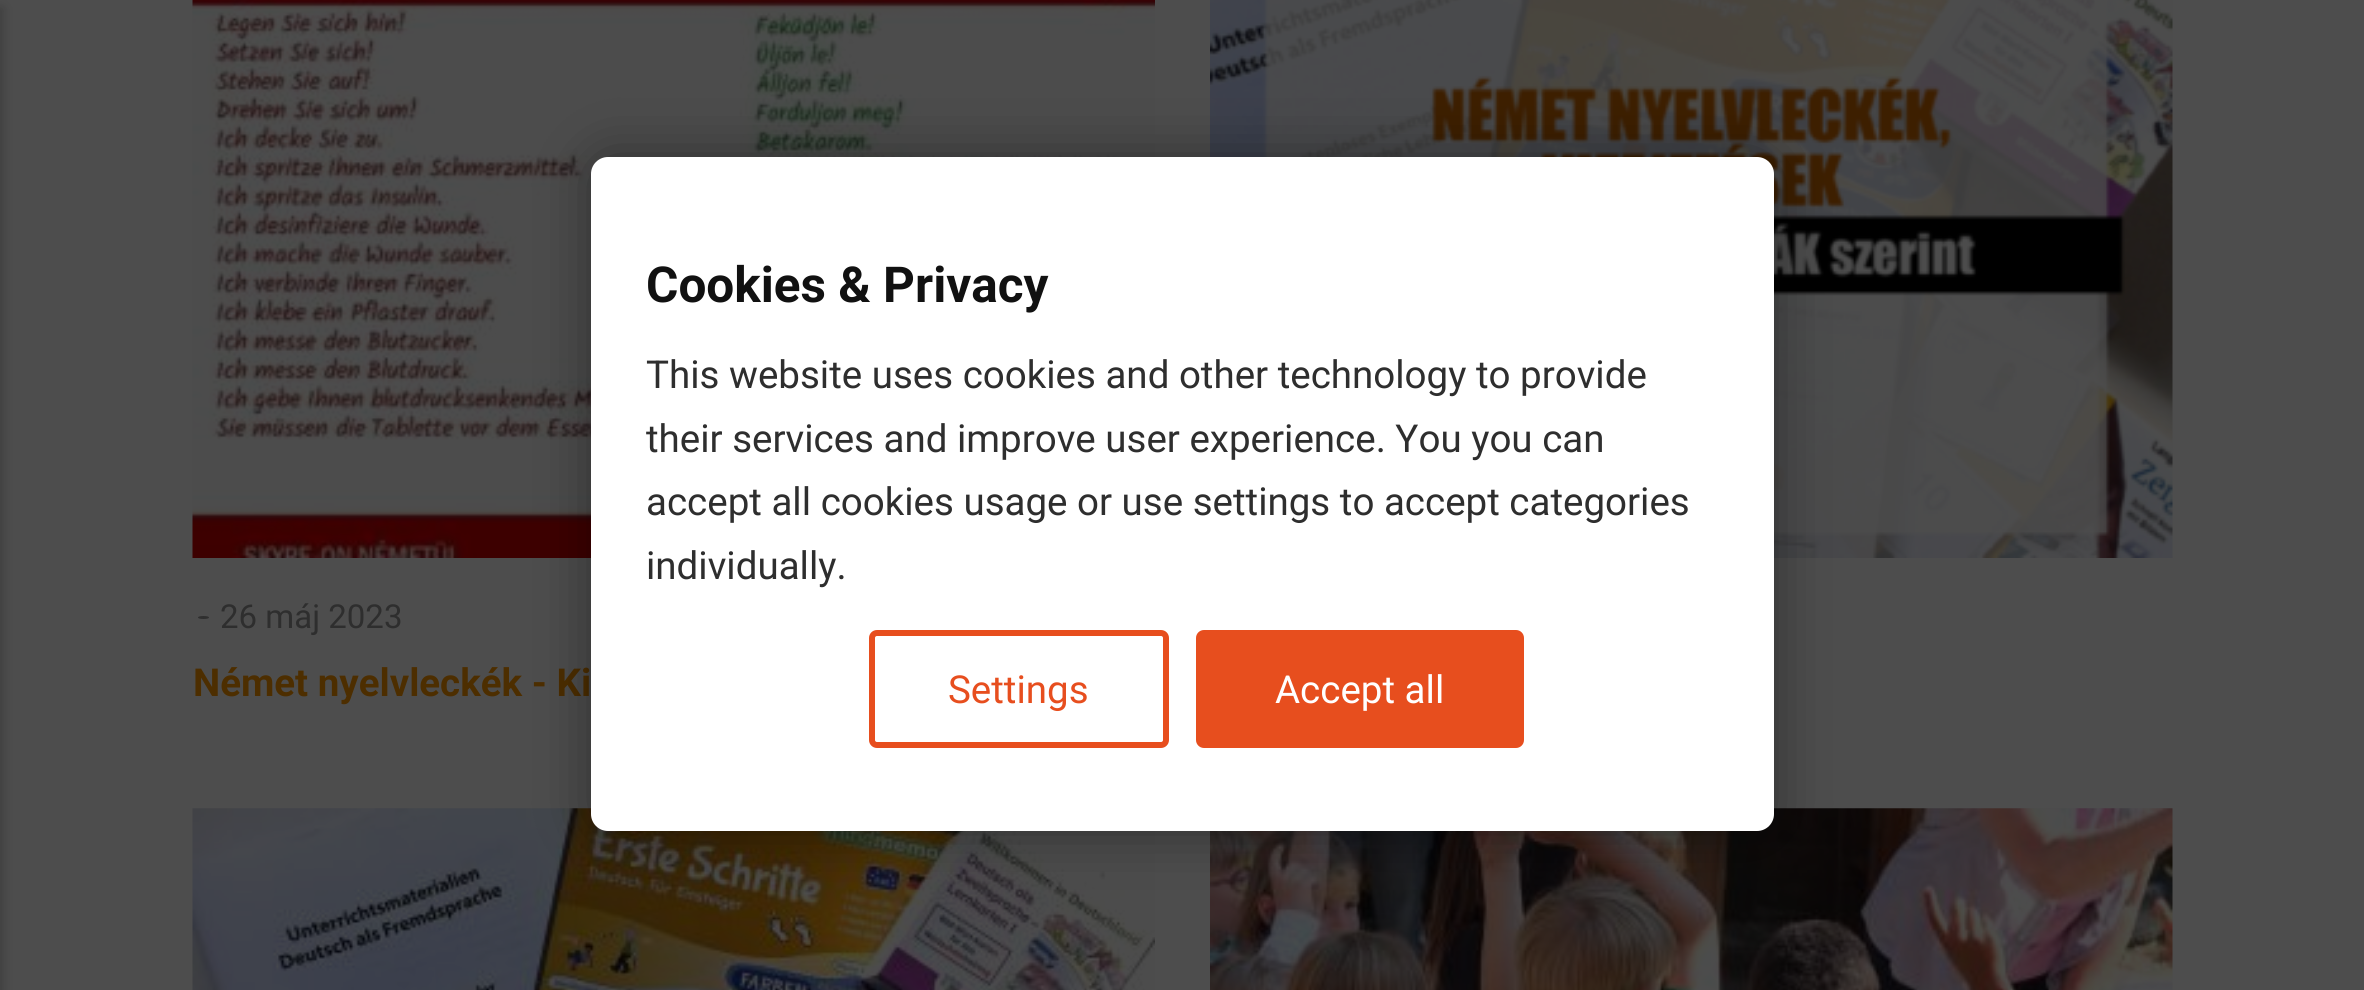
#include <cairo.h>
#include <math.h>
#include <stddef.h>


static void set_color(cairo_t *cr, unsigned color) {
    cairo_set_source_rgb(cr, (color >> 16) / 255.0, (color >> 8 & 255) / 255.0, (color & 255) / 255.0);
}

static void draw_text(cairo_t *cr, double x, double y, const char *s, const char *family, double size, int italic, int bold, unsigned color) {
    cairo_select_font_face(cr, family, italic ? CAIRO_FONT_SLANT_ITALIC : CAIRO_FONT_SLANT_NORMAL,
        bold ? CAIRO_FONT_WEIGHT_BOLD : CAIRO_FONT_WEIGHT_NORMAL);
    cairo_set_font_size(cr, size);
    set_color(cr, color);
    cairo_move_to(cr, x, y);
    cairo_show_text(cr, s);
}

static void rounded_rect(cairo_t *cr, double x, double y, double w, double h, double r) {
    cairo_new_sub_path(cr);
    cairo_arc(cr, x + w - r, y + h - r, r, 0, M_PI / 2);
    cairo_arc(cr, x + r, y + h - r, r, M_PI / 2, M_PI);
    cairo_arc(cr, x + r, y + r, r, M_PI, 1.5 * M_PI);
    cairo_arc(cr, x + w - r, y + r, r, 1.5 * M_PI, 2 * M_PI);
    cairo_close_path(cr);
}

static void draw_shadow(cairo_t *cr, double x, double y, double w, double h, double r, double blur, double alpha) {
    cairo_push_group_with_content(cr, CAIRO_CONTENT_ALPHA);
    cairo_set_operator(cr, CAIRO_OPERATOR_SOURCE);
    for (int i = 15; i >= -15 && fmin(w, h) + blur * i / 3 > 0; i -= 2) {
        double e = blur * i / 6;
        cairo_set_source_rgba(cr, 0, 0, 0, alpha * erfc((i - 1) / 8.5) / 2);
        rounded_rect(cr, x - e, y - e, w + 2 * e, h + 2 * e, fmax(0, fmin(r + e + blur * .6, fmin(w, h) / 2 + e)));
        cairo_fill(cr);
    }
    cairo_pattern_t *soft = cairo_pop_group(cr);
    cairo_mask(cr, soft);
    cairo_pattern_destroy(soft);
}

static void draw_image(cairo_t *cr, const char *path, double x, double y, double w, double h) {
    cairo_surface_t *image = cairo_image_surface_create_from_png(path);
    cairo_save(cr);
    cairo_set_source_surface(cr, image, x, y);
    cairo_rectangle(cr, x, y, w, h);
    cairo_fill(cr);
    cairo_restore(cr);
    cairo_surface_destroy(image);
}

int main(void) {
    cairo_surface_t *surface = cairo_image_surface_create(CAIRO_FORMAT_RGB24, 2364, 990);
    cairo_t *cr = cairo_create(surface);
    cairo_font_options_t *options = cairo_font_options_create();
    cairo_font_options_set_hint_metrics(options, CAIRO_HINT_METRICS_OFF);
    cairo_font_options_set_hint_style(options, CAIRO_HINT_STYLE_NONE);
    cairo_set_font_options(cr, options);
    cairo_set_miter_limit(cr, 4);
    set_color(cr, 0x4D4D4D);
    cairo_paint(cr);
    set_color(cr, 0x000000);
    draw_shadow(cr, -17, 8, 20, 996, 0, 5.5, 0.2);
    draw_image(cr, "assets/img1.png", 1210, 0, 963, 558);
    draw_image(cr, "assets/img2.png", 192, 0, 963, 558);
    set_color(cr, 0x2F2F2F);
    cairo_new_path(cr);
    cairo_move_to(cr, 203.5, 616);
    cairo_curve_to(cr, 206.5, 616, 209, 616.5, 209, 617.5);
    cairo_curve_to(cr, 209, 618.5, 206.5, 619, 203.5, 619);
    cairo_curve_to(cr, 200.5, 619, 198, 618.5, 198, 617.5);
    cairo_curve_to(cr, 198, 616.5, 200.5, 616, 203.5, 616);
    cairo_close_path(cr);
    cairo_fill(cr);
    draw_text(cr, 220, 628, "26 máj 2023", "Roboto", 33, 0, 0, 0x2E2E2E);
    draw_text(cr, 193, 696, "Német nyelvleckék - Ki", "Roboto", 38.5, 0, 1, 0x4D2E00);
    draw_image(cr, "assets/img3.png", 192, 808, 963, 182);
    draw_image(cr, "assets/img4.png", 1210, 808, 963, 182);
    set_color(cr, 0x000000);
    draw_shadow(cr, 591, 157, 1183, 674, 17, 27.5, 0.4);
    set_color(cr, 0xFFFFFF);
    rounded_rect(cr, 591, 157, 1183, 674, 17);
    cairo_fill(cr);
    draw_text(cr, 646, 302, "Cookies & Privacy", "Roboto", 49.5, 0, 1, 0x111111);
    draw_text(cr, 646, 388, "This website uses cookies and other technology to provide", "Roboto", 38.5, 0, 0, 0x2E2E2E);
    draw_text(cr, 646, 452, "their services and improve user experience. You you can", "Roboto", 38.5, 0, 0, 0x2E2E2E);
    draw_text(cr, 646, 515, "accept all cookies usage or use settings to accept categories", "Roboto", 38.5, 0, 0, 0x2E2E2E);
    draw_text(cr, 646, 579, "individually.", "Roboto", 38.5, 0, 0, 0x2E2E2E);
    rounded_rect(cr, 872, 633, 294, 112, 5);
    set_color(cr, 0xE74E1E);
    cairo_set_line_width(cr, 6);
    cairo_stroke(cr);
    draw_text(cr, 948, 703, "Settings", "Roboto", 38.5, 0, 0, 0xE74E1E);
    rounded_rect(cr, 1199, 633, 322, 112, 5);
    cairo_fill_preserve(cr);
    cairo_stroke(cr);
    draw_text(cr, 1275, 703, "Accept all", "Roboto", 38.5, 0, 0, 0xFFFFFF);
    cairo_surface_write_to_png(surface, "output.png");
    cairo_font_options_destroy(options);
    cairo_destroy(cr);
    cairo_surface_destroy(surface);
    return 0;
}
